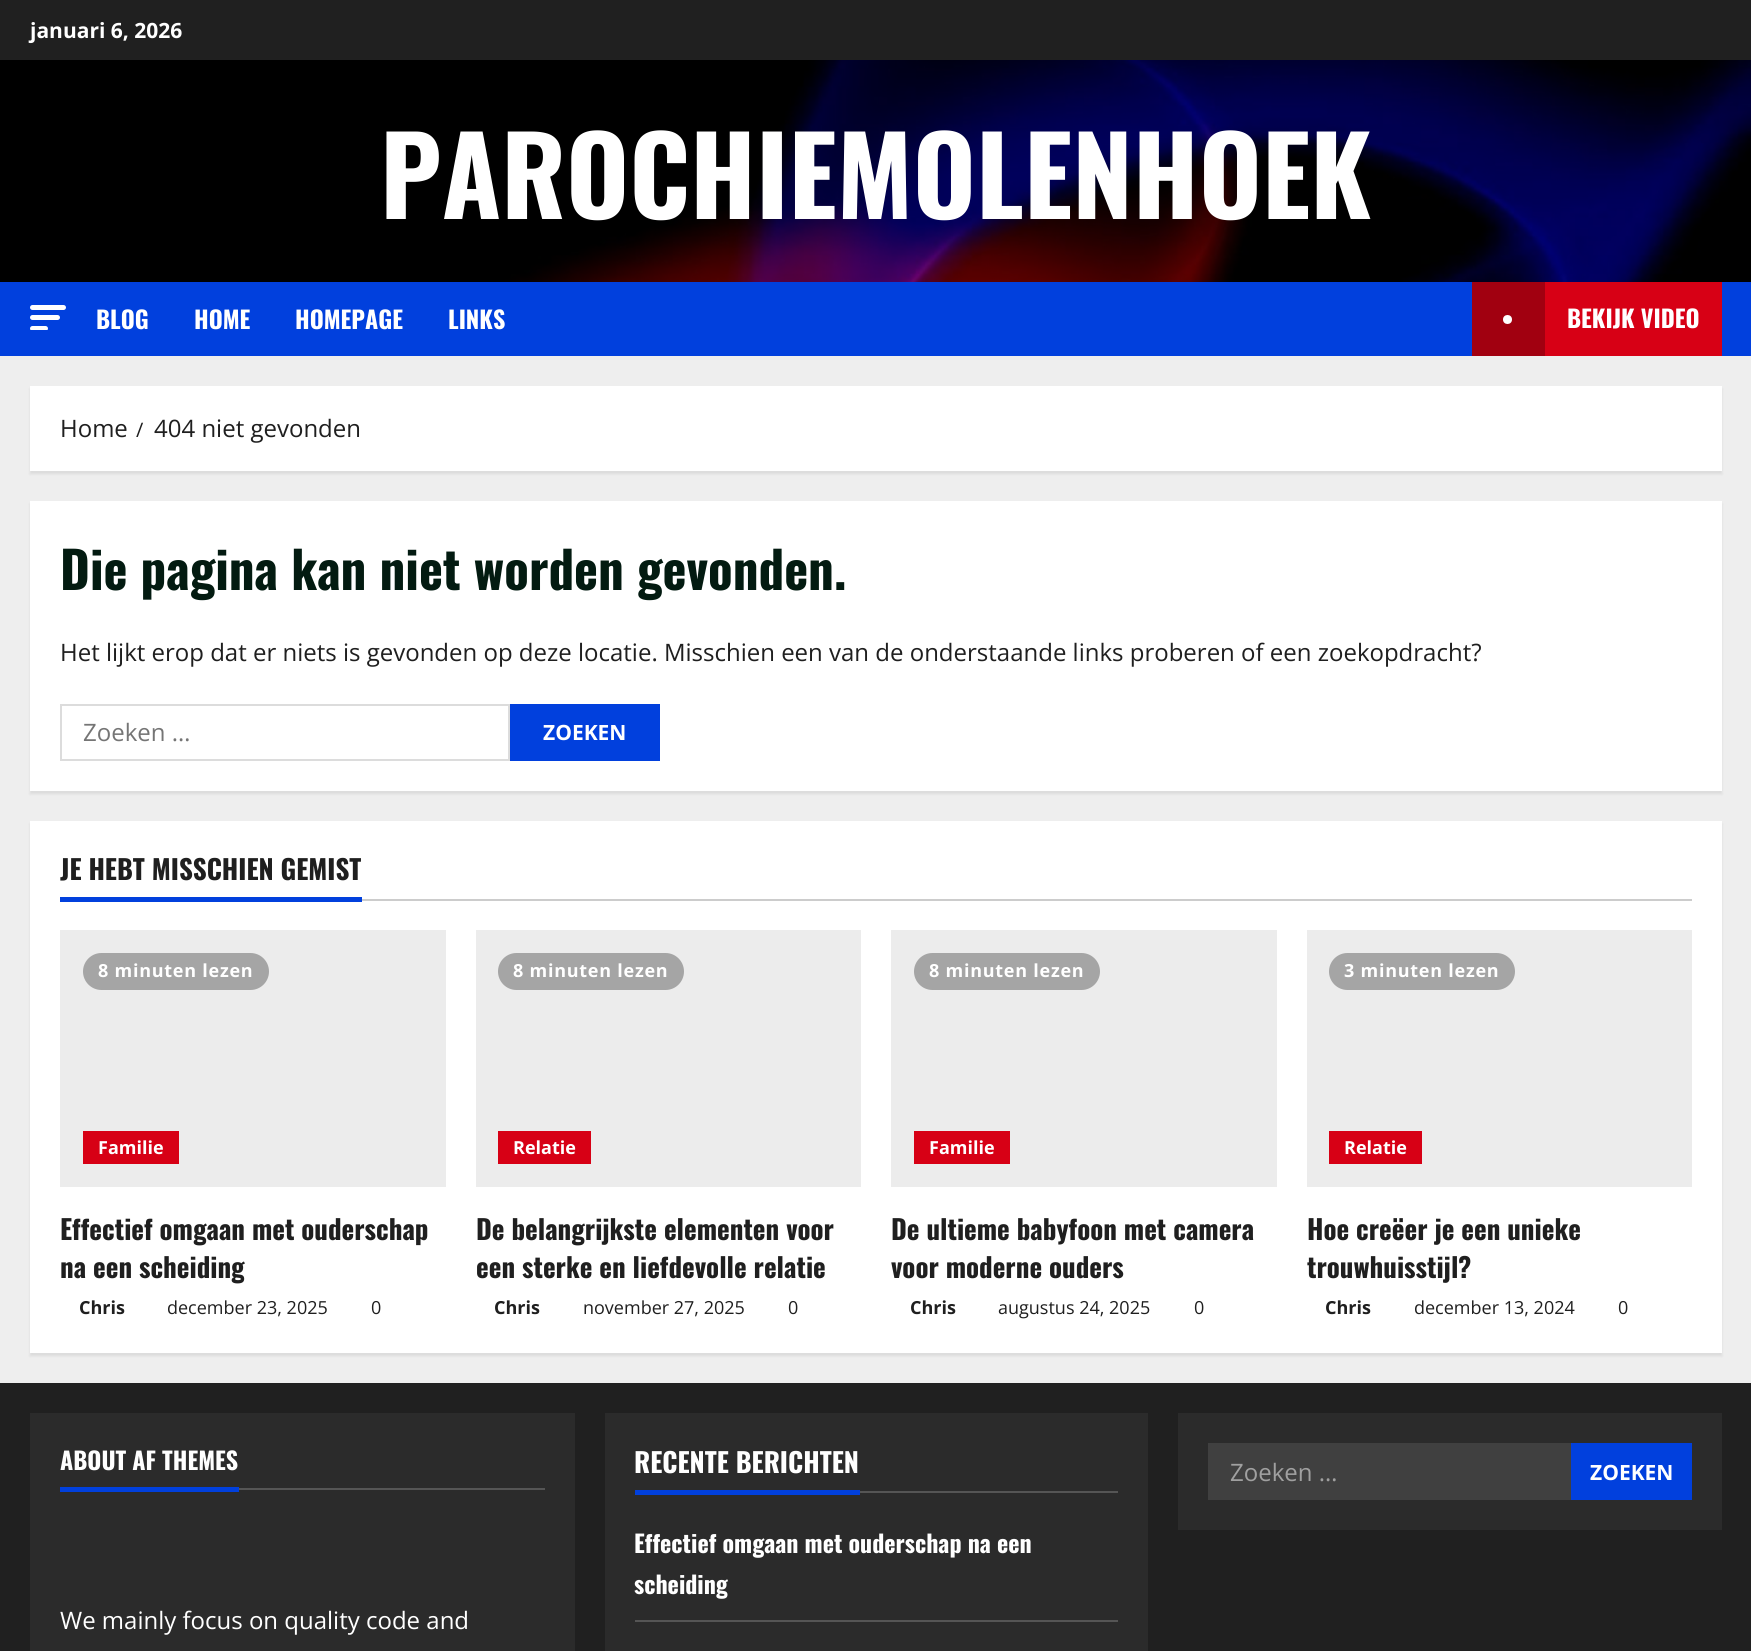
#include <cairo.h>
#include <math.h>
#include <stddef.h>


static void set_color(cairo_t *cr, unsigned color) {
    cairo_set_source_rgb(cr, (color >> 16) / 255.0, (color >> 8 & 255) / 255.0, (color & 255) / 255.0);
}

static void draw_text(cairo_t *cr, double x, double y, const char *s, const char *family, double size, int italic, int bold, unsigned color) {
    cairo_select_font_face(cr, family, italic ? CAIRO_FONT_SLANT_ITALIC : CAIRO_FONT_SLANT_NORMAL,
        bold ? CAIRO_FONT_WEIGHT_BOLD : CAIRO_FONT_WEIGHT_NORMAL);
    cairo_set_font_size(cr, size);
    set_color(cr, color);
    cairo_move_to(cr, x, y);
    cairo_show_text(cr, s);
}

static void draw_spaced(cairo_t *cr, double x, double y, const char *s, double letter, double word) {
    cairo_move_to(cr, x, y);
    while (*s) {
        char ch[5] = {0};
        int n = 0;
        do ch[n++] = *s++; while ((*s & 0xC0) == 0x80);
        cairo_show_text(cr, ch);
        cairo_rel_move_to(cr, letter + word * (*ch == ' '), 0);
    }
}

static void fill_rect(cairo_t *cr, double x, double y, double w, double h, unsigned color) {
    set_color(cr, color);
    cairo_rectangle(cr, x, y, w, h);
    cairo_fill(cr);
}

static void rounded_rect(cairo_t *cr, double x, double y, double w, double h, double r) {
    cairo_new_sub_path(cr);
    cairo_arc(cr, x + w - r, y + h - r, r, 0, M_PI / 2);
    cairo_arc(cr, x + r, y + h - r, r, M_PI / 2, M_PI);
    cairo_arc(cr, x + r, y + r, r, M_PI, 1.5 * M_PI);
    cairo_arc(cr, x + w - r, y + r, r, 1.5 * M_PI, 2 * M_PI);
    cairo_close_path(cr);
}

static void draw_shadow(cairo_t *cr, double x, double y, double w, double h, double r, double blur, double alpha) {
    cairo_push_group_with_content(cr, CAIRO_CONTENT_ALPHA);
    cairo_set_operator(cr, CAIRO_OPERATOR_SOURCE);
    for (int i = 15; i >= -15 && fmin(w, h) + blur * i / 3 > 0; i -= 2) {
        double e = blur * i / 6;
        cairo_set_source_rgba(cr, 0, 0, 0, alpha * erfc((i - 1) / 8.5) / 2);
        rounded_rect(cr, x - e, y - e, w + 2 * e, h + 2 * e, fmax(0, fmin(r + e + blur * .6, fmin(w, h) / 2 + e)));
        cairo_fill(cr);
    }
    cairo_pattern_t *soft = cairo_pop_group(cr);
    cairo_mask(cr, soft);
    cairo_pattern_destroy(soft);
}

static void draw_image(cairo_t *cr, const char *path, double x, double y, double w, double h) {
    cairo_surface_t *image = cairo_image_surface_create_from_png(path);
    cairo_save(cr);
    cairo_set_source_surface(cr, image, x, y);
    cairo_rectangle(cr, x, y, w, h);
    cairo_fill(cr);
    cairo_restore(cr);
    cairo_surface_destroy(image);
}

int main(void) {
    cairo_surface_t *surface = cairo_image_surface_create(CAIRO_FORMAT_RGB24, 1751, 1651);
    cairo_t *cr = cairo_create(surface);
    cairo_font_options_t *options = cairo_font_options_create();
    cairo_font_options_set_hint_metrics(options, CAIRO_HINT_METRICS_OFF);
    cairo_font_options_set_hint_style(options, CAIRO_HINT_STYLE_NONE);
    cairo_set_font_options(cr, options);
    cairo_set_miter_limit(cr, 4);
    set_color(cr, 0xEEEEEE);
    cairo_paint(cr);
    fill_rect(cr, 0, 0, 1751, 60, 0x202020);
    draw_text(cr, 30, 38, "januari 6, 2026", "Open Sans", 21, 0, 1, 0xFFFFFF);
    draw_image(cr, "assets/img1.png", 0, 60, 1751, 222);
    draw_text(cr, 380, 219, "PAROCHIEMOLENHOEK", "Oswald", 108, 0, 1, 0xFFFFFF);
    fill_rect(cr, 0, 282, 1751, 74, 0x0140DD);
    set_color(cr, 0xFFFFFF);
    rounded_rect(cr, 30, 305, 36, 5, 2.5);
    cairo_fill(cr);
    rounded_rect(cr, 30, 315, 30, 5, 2.5);
    cairo_fill(cr);
    cairo_save(cr);
    cairo_rectangle(cr, 30, 305, 36, 25);
    cairo_clip(cr);
    rounded_rect(cr, 30, 326, 18, 5, 2.5);
    cairo_fill(cr);
    cairo_restore(cr);
    draw_text(cr, 96, 329, "BLOG", "Oswald", 24, 0, 1, 0xFFFFFF);
    draw_text(cr, 194, 329, "HOME", "Oswald", 24, 0, 1, 0xFFFFFF);
    draw_text(cr, 295, 329, "HOMEPAGE", "Oswald", 24, 0, 1, 0xFFFFFF);
    draw_text(cr, 448, 329, "LINKS", "Oswald", 24, 0, 1, 0xFFFFFF);
    fill_rect(cr, 1545, 282, 177, 74, 0xD70015);
    fill_rect(cr, 1472, 282, 73, 74, 0xA10010);
    set_color(cr, 0xFFFFFF);
    cairo_new_path(cr);
    cairo_arc(cr, 1507.5, 319.5, 4.5, 0, 2 * M_PI);
    cairo_fill(cr);
    draw_text(cr, 1567, 328, "BEKIJK VIDEO", "Oswald", 24, 0, 1, 0xFFFFFF);
    set_color(cr, 0x000000);
    draw_shadow(cr, 30, 389, 1692, 85, 0, 1.5, 0.08);
    fill_rect(cr, 30, 386, 1692, 85, 0xFFFFFF);
    draw_text(cr, 60, 437, "Home", "Open Sans", 24, 0, 0, 0x1F1F1F);
    draw_text(cr, 136, 437, "/", "Open Sans", 20, 0, 0, 0x1F1F1F);
    draw_text(cr, 154, 437, "404 niet gevonden", "Open Sans", 24, 0, 0, 0x1F1F1F);
    set_color(cr, 0x000000);
    draw_shadow(cr, 30, 504, 1692, 290, 0, 1.5, 0.08);
    fill_rect(cr, 30, 501, 1692, 290, 0xFFFFFF);
    draw_text(cr, 60, 590, "Die pagina kan niet worden gevonden.", "Oswald", 51, 0, 1, 0x031B11);
    draw_text(cr, 60, 661, "Het lijkt erop dat er niets is gevonden op deze locatie. Misschien een van de onderstaande links proberen of een zoekopdracht?", "Open Sans", 24, 0, 0, 0x1F1F1F);
    cairo_rectangle(cr, 61, 705, 448, 55);
    set_color(cr, 0xDCDCDC);
    cairo_stroke(cr);
    draw_text(cr, 83, 741, "Zoeken …", "Open Sans", 24, 0, 0, 0x757575);
    fill_rect(cr, 510, 704, 150, 57, 0x0140DD);
    draw_text(cr, 543, 740, "ZOEKEN", "Open Sans", 21, 0, 1, 0xFFFFFF);
    set_color(cr, 0x000000);
    draw_shadow(cr, 30, 824, 1692, 532, 0, 1.5, 0.08);
    fill_rect(cr, 30, 821, 1692, 532, 0xFFFFFF);
    fill_rect(cr, 362, 899, 1330, 2, 0xCCCCCC);
    draw_text(cr, 60, 880, "JE HEBT MISSCHIEN GEMIST", "Oswald", 27, 0, 1, 0x1F1F1F);
    fill_rect(cr, 60, 897, 302, 5, 0x0140DD);
    fill_rect(cr, 60, 930, 386, 257, 0xECECEC);
    set_color(cr, 0xA5A5A5);
    rounded_rect(cr, 83, 953, 186, 37, 18.5);
    cairo_fill(cr);
    cairo_select_font_face(cr, "Open Sans", CAIRO_FONT_SLANT_NORMAL, CAIRO_FONT_WEIGHT_BOLD);
    cairo_set_font_size(cr, 18);
    set_color(cr, 0xFFFFFF);
    draw_spaced(cr, 98, 977, "8 minuten lezen", 0.75, 0);
    fill_rect(cr, 83, 1131, 96, 33, 0xD70015);
    draw_text(cr, 98, 1154, "Familie", "Open Sans", 18, 0, 1, 0xFFFFFF);
    draw_text(cr, 60, 1240, "Effectief omgaan met ouderschap", "Oswald", 27, 0, 1, 0x1F1F1F);
    draw_text(cr, 60, 1278, "na een scheiding", "Oswald", 27, 0, 1, 0x1F1F1F);
    draw_text(cr, 79, 1314, "Chris", "Open Sans", 18, 0, 1, 0x1F1F1F);
    draw_text(cr, 167, 1314, "december 23, 2025", "Open Sans", 18, 0, 0, 0x1F1F1F);
    draw_text(cr, 371, 1314, "0", "Open Sans", 18, 0, 0, 0x1F1F1F);
    fill_rect(cr, 476, 930, 385, 257, 0xECECEC);
    set_color(cr, 0xA5A5A5);
    rounded_rect(cr, 498, 953, 186, 37, 18.5);
    cairo_fill(cr);
    cairo_select_font_face(cr, "Open Sans", CAIRO_FONT_SLANT_NORMAL, CAIRO_FONT_WEIGHT_BOLD);
    set_color(cr, 0xFFFFFF);
    draw_spaced(cr, 513, 977, "8 minuten lezen", 0.75, 0);
    fill_rect(cr, 498, 1131, 93, 33, 0xD70015);
    draw_text(cr, 513, 1154, "Relatie", "Open Sans", 18, 0, 1, 0xFFFFFF);
    draw_text(cr, 476, 1240, "De belangrijkste elementen voor", "Oswald", 27, 0, 1, 0x1F1F1F);
    draw_text(cr, 476, 1278, "een sterke en liefdevolle relatie", "Oswald", 27, 0, 1, 0x1F1F1F);
    draw_text(cr, 494, 1314, "Chris", "Open Sans", 18, 0, 1, 0x1F1F1F);
    draw_text(cr, 583, 1314, "november 27, 2025", "Open Sans", 18, 0, 0, 0x1F1F1F);
    draw_text(cr, 788, 1314, "0", "Open Sans", 18, 0, 0, 0x1F1F1F);
    fill_rect(cr, 891, 930, 386, 257, 0xECECEC);
    set_color(cr, 0xA5A5A5);
    rounded_rect(cr, 914, 953, 186, 37, 18.5);
    cairo_fill(cr);
    cairo_select_font_face(cr, "Open Sans", CAIRO_FONT_SLANT_NORMAL, CAIRO_FONT_WEIGHT_BOLD);
    set_color(cr, 0xFFFFFF);
    draw_spaced(cr, 929, 977, "8 minuten lezen", 0.75, 0);
    fill_rect(cr, 914, 1131, 96, 33, 0xD70015);
    draw_text(cr, 929, 1154, "Familie", "Open Sans", 18, 0, 1, 0xFFFFFF);
    draw_text(cr, 891, 1240, "De ultieme babyfoon met camera", "Oswald", 27, 0, 1, 0x1F1F1F);
    draw_text(cr, 891, 1278, "voor moderne ouders", "Oswald", 27, 0, 1, 0x1F1F1F);
    draw_text(cr, 910, 1314, "Chris", "Open Sans", 18, 0, 1, 0x1F1F1F);
    draw_text(cr, 998, 1314, "augustus 24, 2025", "Open Sans", 18, 0, 0, 0x1F1F1F);
    draw_text(cr, 1194, 1314, "0", "Open Sans", 18, 0, 0, 0x1F1F1F);
    fill_rect(cr, 1307, 930, 385, 257, 0xECECEC);
    set_color(cr, 0xA5A5A5);
    rounded_rect(cr, 1329, 953, 186, 37, 18.5);
    cairo_fill(cr);
    cairo_select_font_face(cr, "Open Sans", CAIRO_FONT_SLANT_NORMAL, CAIRO_FONT_WEIGHT_BOLD);
    set_color(cr, 0xFFFFFF);
    draw_spaced(cr, 1344, 977, "3 minuten lezen", 0.75, 0);
    fill_rect(cr, 1329, 1131, 93, 33, 0xD70015);
    draw_text(cr, 1344, 1154, "Relatie", "Open Sans", 18, 0, 1, 0xFFFFFF);
    draw_text(cr, 1307, 1240, "Hoe creëer je een unieke", "Oswald", 27, 0, 1, 0x1F1F1F);
    draw_text(cr, 1307, 1278, "trouwhuisstijl?", "Oswald", 27, 0, 1, 0x1F1F1F);
    draw_text(cr, 1325, 1314, "Chris", "Open Sans", 18, 0, 1, 0x1F1F1F);
    draw_text(cr, 1414, 1314, "december 13, 2024", "Open Sans", 18, 0, 0, 0x1F1F1F);
    draw_text(cr, 1618, 1314, "0", "Open Sans", 18, 0, 0, 0x1F1F1F);
    fill_rect(cr, 0, 1383, 1751, 268, 0x202020);
    fill_rect(cr, 30, 1413, 545, 238, 0x2B2B2B);
    draw_text(cr, 60, 1470, "ABOUT AF THEMES", "Oswald", 24, 0, 1, 0xFFFFFF);
    fill_rect(cr, 60, 1487, 179, 5, 0x0140DD);
    fill_rect(cr, 239, 1488, 306, 2, 0x555555);
    draw_text(cr, 60, 1629, "We mainly focus on quality code and", "Open Sans", 24, 0, 0, 0xFFFFFF);
    fill_rect(cr, 605, 1413, 543, 238, 0x2B2B2B);
    fill_rect(cr, 860, 1491, 258, 2, 0x555555);
    draw_text(cr, 634, 1473, "RECENTE BERICHTEN", "Oswald", 27, 0, 1, 0xFFFFFF);
    fill_rect(cr, 635, 1490, 225, 5, 0x0140DD);
    fill_rect(cr, 635, 1620, 483, 2, 0x555555);
    draw_text(cr, 634, 1553, "Effectief omgaan met ouderschap na een", "Oswald", 24, 0, 1, 0xFFFFFF);
    draw_text(cr, 634, 1594, "scheiding", "Oswald", 24, 0, 1, 0xFFFFFF);
    fill_rect(cr, 1178, 1413, 544, 117, 0x2B2B2B);
    fill_rect(cr, 1208, 1443, 363, 57, 0x404040);
    draw_text(cr, 1230, 1481, "Zoeken …", "Open Sans", 24, 0, 0, 0xA0A0A0);
    fill_rect(cr, 1571, 1443, 121, 57, 0x0140DD);
    draw_text(cr, 1590, 1480, "ZOEKEN", "Open Sans", 21, 0, 1, 0xFFFFFF);
    cairo_surface_write_to_png(surface, "output.png");
    cairo_font_options_destroy(options);
    cairo_destroy(cr);
    cairo_surface_destroy(surface);
    return 0;
}
